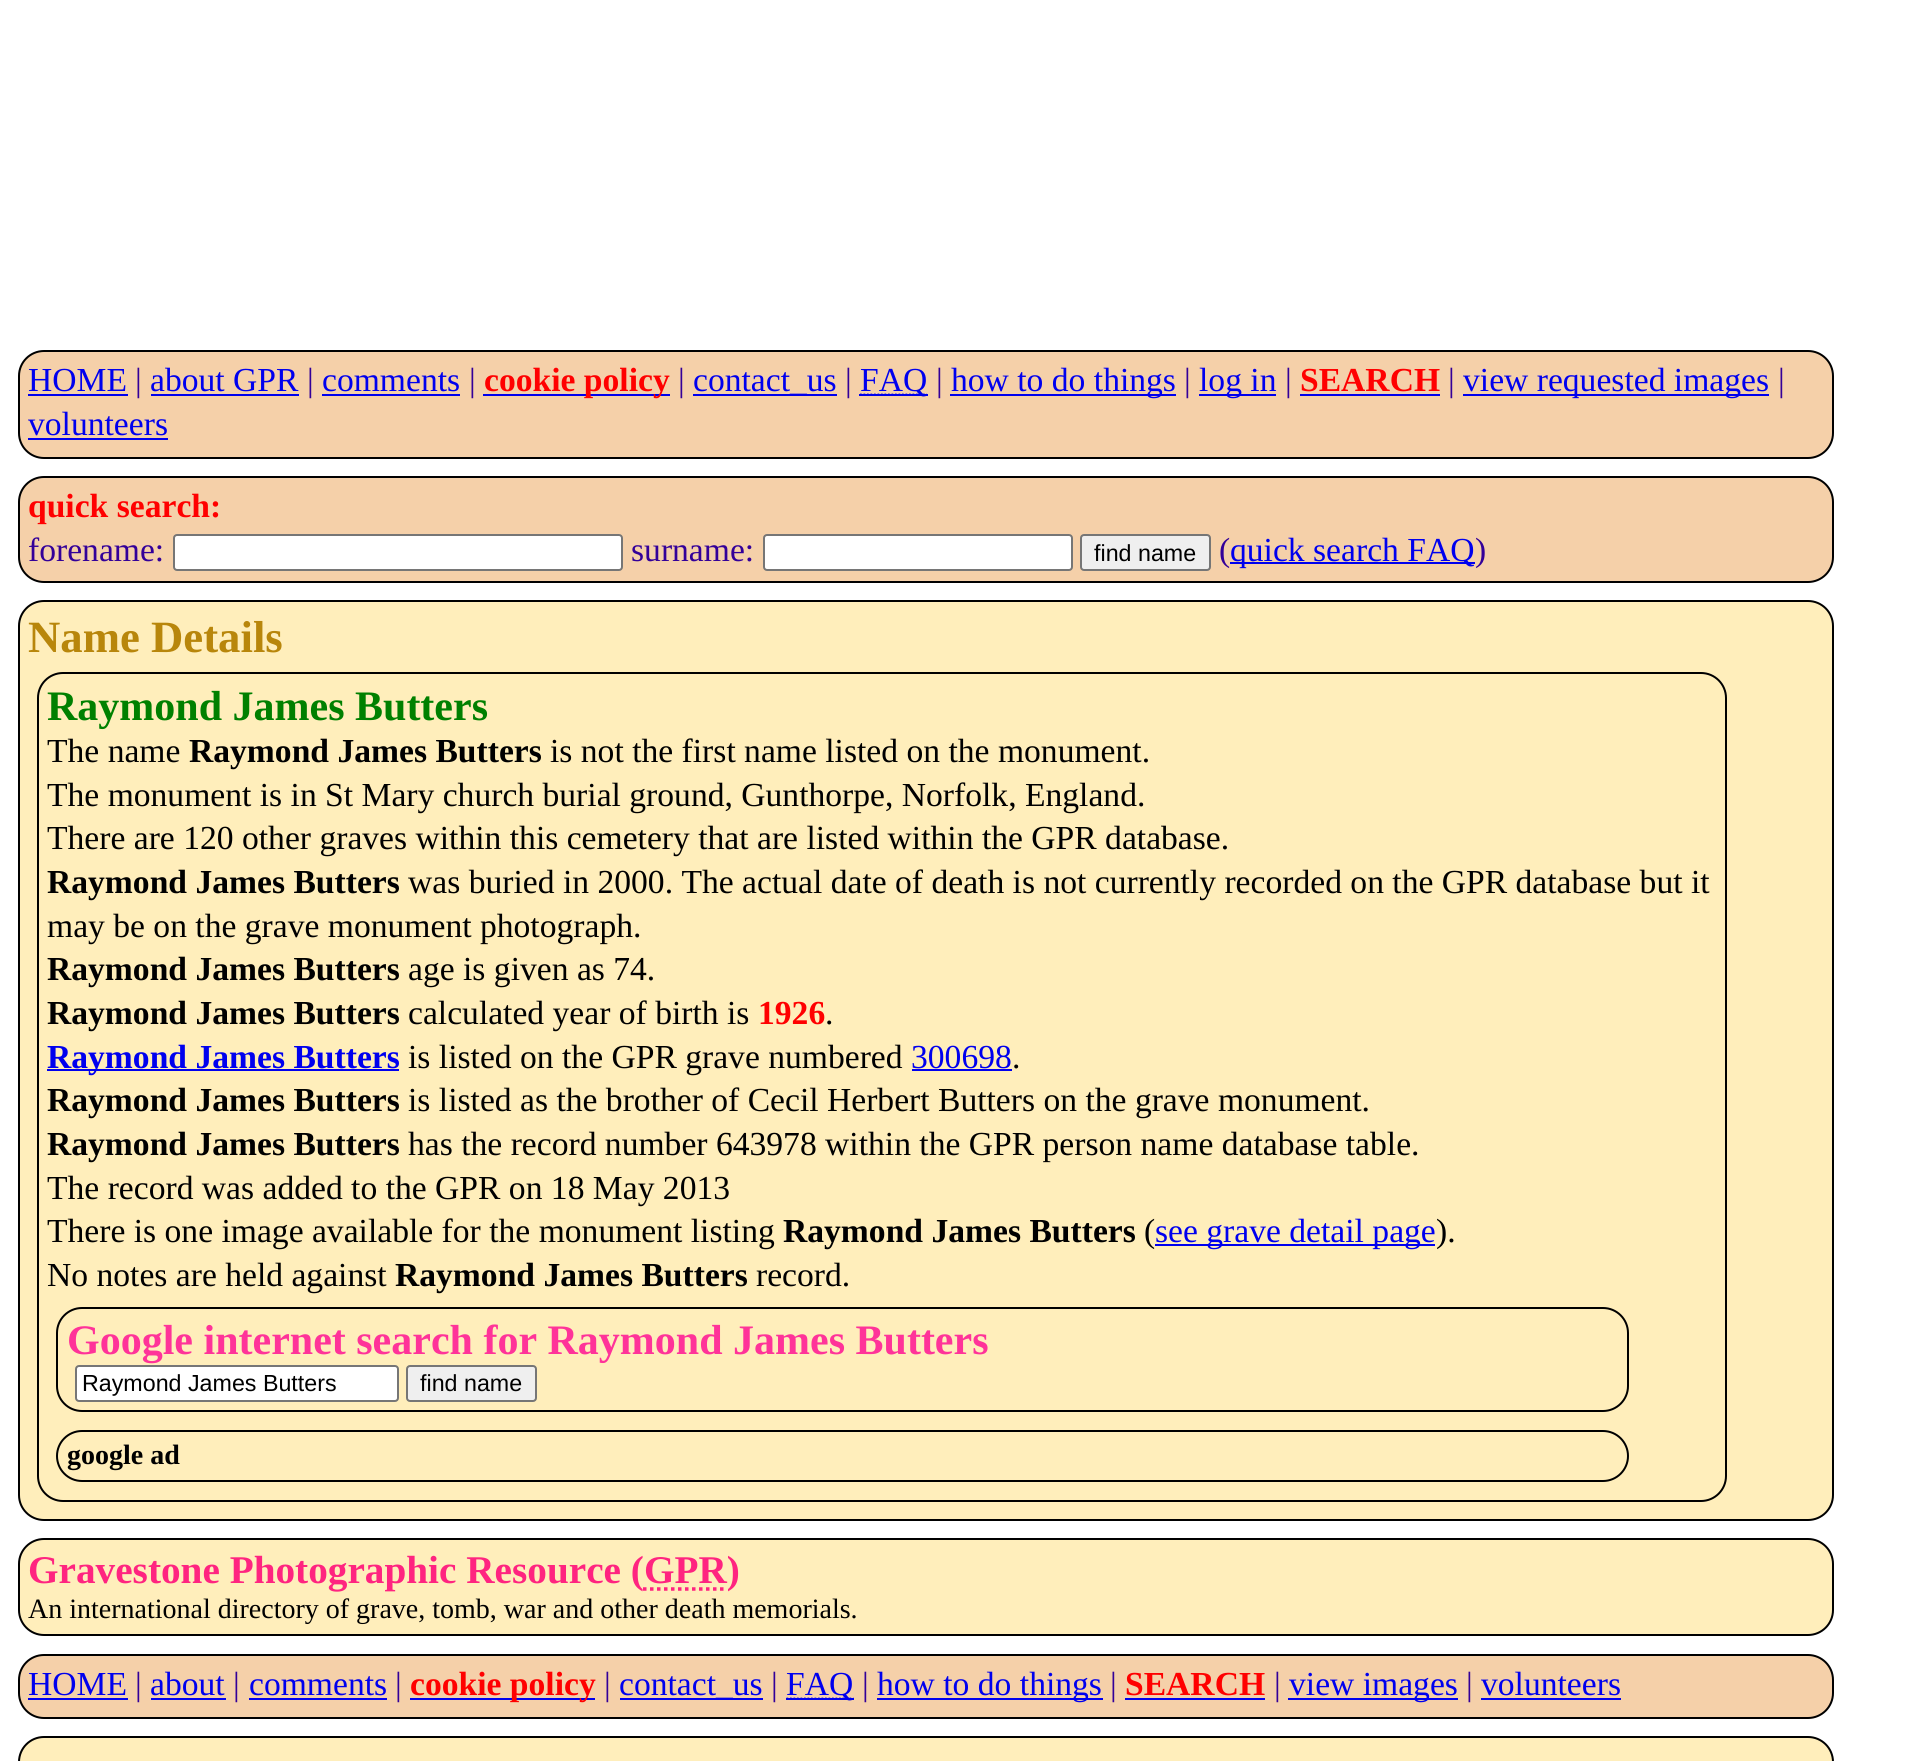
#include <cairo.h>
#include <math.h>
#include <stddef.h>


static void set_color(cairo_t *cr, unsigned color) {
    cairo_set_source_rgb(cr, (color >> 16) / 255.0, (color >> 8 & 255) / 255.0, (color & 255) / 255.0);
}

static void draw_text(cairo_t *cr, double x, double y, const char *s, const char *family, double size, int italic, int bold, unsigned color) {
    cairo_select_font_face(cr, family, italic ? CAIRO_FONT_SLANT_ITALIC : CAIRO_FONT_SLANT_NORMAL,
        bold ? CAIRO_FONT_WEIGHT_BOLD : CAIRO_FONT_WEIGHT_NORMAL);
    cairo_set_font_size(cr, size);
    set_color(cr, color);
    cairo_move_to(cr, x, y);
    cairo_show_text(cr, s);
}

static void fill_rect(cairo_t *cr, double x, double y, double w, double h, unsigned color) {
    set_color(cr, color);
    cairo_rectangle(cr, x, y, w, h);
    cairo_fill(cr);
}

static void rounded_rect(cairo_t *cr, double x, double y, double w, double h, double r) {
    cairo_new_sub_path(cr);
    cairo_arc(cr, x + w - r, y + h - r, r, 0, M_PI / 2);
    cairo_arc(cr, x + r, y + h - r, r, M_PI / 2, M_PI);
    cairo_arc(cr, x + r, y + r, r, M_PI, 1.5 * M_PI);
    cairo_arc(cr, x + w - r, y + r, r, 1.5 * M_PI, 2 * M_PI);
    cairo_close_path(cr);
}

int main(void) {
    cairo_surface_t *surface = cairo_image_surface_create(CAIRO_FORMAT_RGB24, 1925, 1761);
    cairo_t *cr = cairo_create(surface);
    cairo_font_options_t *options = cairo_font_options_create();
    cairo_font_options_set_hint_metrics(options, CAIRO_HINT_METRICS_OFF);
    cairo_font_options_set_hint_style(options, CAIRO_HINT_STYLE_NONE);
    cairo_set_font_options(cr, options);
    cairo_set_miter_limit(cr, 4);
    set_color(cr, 0xFFFFFF);
    cairo_paint(cr);
    set_color(cr, 0xF5D0A9);
    rounded_rect(cr, 19, 351, 1814, 107, 25);
    cairo_fill_preserve(cr);
    set_color(cr, 0x000000);
    cairo_stroke(cr);
    draw_text(cr, 28, 391, "HOME", "Liberation Serif", 33.6, 0, 0, 0x0000EE);
    fill_rect(cr, 28, 394, 100, 2, 0x0000EE);
    draw_text(cr, 135, 391, "|", "Liberation Serif", 33.6, 0, 0, 0x330099);
    draw_text(cr, 150, 391, "about GPR", "Liberation Serif", 33.6, 0, 0, 0x0000EE);
    fill_rect(cr, 151, 394, 148, 2, 0x0000EE);
    draw_text(cr, 307, 391, "|", "Liberation Serif", 33.6, 0, 0, 0x330099);
    draw_text(cr, 322, 391, "comments", "Liberation Serif", 33.6, 0, 0, 0x0000EE);
    fill_rect(cr, 322, 394, 138, 2, 0x0000EE);
    draw_text(cr, 469, 391, "|", "Liberation Serif", 33.6, 0, 0, 0x330099);
    fill_rect(cr, 483, 394, 187, 2, 0x0000EE);
    draw_text(cr, 484, 391, "cookie policy", "Liberation Serif", 33.6, 0, 1, 0xFF0000);
    draw_text(cr, 678, 391, "|", "Liberation Serif", 33.6, 0, 0, 0x330099);
    fill_rect(cr, 693, 394, 144, 2, 0x0000EE);
    draw_text(cr, 693, 391, "contact_us", "Liberation Serif", 33.6, 0, 0, 0x0000EE);
    draw_text(cr, 845, 391, "|", "Liberation Serif", 33.6, 0, 0, 0x330099);
    cairo_new_path(cr);
    cairo_move_to(cr, 860, 394.5);
    cairo_line_to(cr, 927, 394.5);
    set_color(cr, 0x0000EE);
    cairo_set_line_width(cr, 1.8);
    cairo_set_dash(cr, (double[]){1.75, 1.75}, 2, 0);
    cairo_stroke(cr);
    fill_rect(cr, 859, 394, 69, 2, 0x0000EE);
    draw_text(cr, 860, 391, "FAQ", "Liberation Serif", 33.6, 0, 0, 0x0000EE);
    draw_text(cr, 936, 391, "|", "Liberation Serif", 33.6, 0, 0, 0x330099);
    fill_rect(cr, 950, 394, 226, 2, 0x0000EE);
    draw_text(cr, 951, 391, "how to do things", "Liberation Serif", 33.6, 0, 0, 0x0000EE);
    draw_text(cr, 1184, 391, "|", "Liberation Serif", 33.6, 0, 0, 0x330099);
    fill_rect(cr, 1199, 394, 77, 2, 0x0000EE);
    draw_text(cr, 1199, 391, "log in", "Liberation Serif", 33.6, 0, 0, 0x0000EE);
    draw_text(cr, 1285, 391, "|", "Liberation Serif", 33.6, 0, 0, 0x330099);
    draw_text(cr, 1300, 391, "SEARCH", "Liberation Serif", 33.6, 0, 1, 0xFF0000);
    fill_rect(cr, 1300, 394, 140, 2, 0x0000EE);
    draw_text(cr, 1448, 391, "|", "Liberation Serif", 33.6, 0, 0, 0x330099);
    fill_rect(cr, 1463, 394, 306, 2, 0x0000EE);
    draw_text(cr, 1463, 391, "view requested images", "Liberation Serif", 33.6, 0, 0, 0x0000EE);
    draw_text(cr, 1778, 391, "|", "Liberation Serif", 33.6, 0, 0, 0x330099);
    draw_text(cr, 28, 435, "volunteers", "Liberation Serif", 33.6, 0, 0, 0x0000EE);
    fill_rect(cr, 28, 438, 140, 2, 0x0000EE);
    set_color(cr, 0xF5D0A9);
    rounded_rect(cr, 19, 477, 1814, 105, 25);
    cairo_fill_preserve(cr);
    set_color(cr, 0x000000);
    cairo_set_line_width(cr, 2);
    cairo_set_dash(cr, NULL, 0, 0);
    cairo_stroke(cr);
    draw_text(cr, 28, 517, "quick search:", "Liberation Serif", 33.6, 0, 1, 0xFF0000);
    draw_text(cr, 28, 561, "forename:", "Liberation Serif", 33.6, 0, 0, 0x330099);
    set_color(cr, 0xFFFFFF);
    rounded_rect(cr, 174, 535, 448, 35, 3);
    cairo_fill_preserve(cr);
    set_color(cr, 0x767676);
    cairo_stroke(cr);
    draw_text(cr, 631, 561, "surname:", "Liberation Serif", 33.6, 0, 0, 0x330099);
    set_color(cr, 0xFFFFFF);
    rounded_rect(cr, 764, 535, 308, 35, 3);
    cairo_fill_preserve(cr);
    set_color(cr, 0x767676);
    cairo_stroke(cr);
    set_color(cr, 0xEFEFEF);
    rounded_rect(cr, 1081, 535, 129, 35, 3);
    cairo_fill_preserve(cr);
    set_color(cr, 0x767676);
    cairo_stroke(cr);
    draw_text(cr, 1094, 561, "find name", "Liberation Sans", 23.25, 0, 0, 0x000000);
    draw_text(cr, 1219, 561, "(", "Liberation Serif", 33.6, 0, 0, 0x330099);
    fill_rect(cr, 1230, 562, 245, 2, 0x0000EE);
    draw_text(cr, 1230, 561, "quick search FAQ", "Liberation Serif", 33.6, 0, 0, 0x0000EE);
    draw_text(cr, 1475, 561, ")", "Liberation Serif", 33.6, 0, 0, 0x330099);
    set_color(cr, 0xFFEEBB);
    rounded_rect(cr, 19, 601, 1814, 919, 25);
    cairo_fill_preserve(cr);
    set_color(cr, 0x000000);
    cairo_stroke(cr);
    draw_text(cr, 28, 652, "Name Details", "Liberation Serif", 44.75, 0, 1, 0xB8860B);
    rounded_rect(cr, 38, 673, 1688, 828, 25);
    set_color(cr, 0x000000);
    cairo_stroke(cr);
    draw_text(cr, 47, 720, "Raymond James Butters", "Liberation Serif", 42, 0, 1, 0x008000);
    draw_text(cr, 47, 762, "The name", "Liberation Serif", 33.6, 0, 0, 0x000000);
    draw_text(cr, 189, 762, "Raymond James Butters", "Liberation Serif", 33.6, 0, 1, 0x000000);
    draw_text(cr, 550, 762, "is not the first name listed on the monument.", "Liberation Serif", 33.6, 0, 0, 0x000000);
    draw_text(cr, 47, 806, "The monument is in St Mary church burial ground, Gunthorpe, Norfolk, England.", "Liberation Serif", 33.6, 0, 0, 0x000000);
    draw_text(cr, 47, 849, "There are 120 other graves within this cemetery that are listed within the GPR database.", "Liberation Serif", 33.6, 0, 0, 0x000000);
    draw_text(cr, 47, 893, "Raymond James Butters", "Liberation Serif", 33.6, 0, 1, 0x000000);
    draw_text(cr, 408, 893, "was buried in 2000. The actual date of death is not currently recorded on the GPR database but it", "Liberation Serif", 33.6, 0, 0, 0x000000);
    draw_text(cr, 47, 937, "may be on the grave monument photograph.", "Liberation Serif", 33.6, 0, 0, 0x000000);
    draw_text(cr, 47, 980, "Raymond James Butters", "Liberation Serif", 33.6, 0, 1, 0x000000);
    draw_text(cr, 408, 980, "age is given as 74.", "Liberation Serif", 33.6, 0, 0, 0x000000);
    draw_text(cr, 47, 1024, "Raymond James Butters", "Liberation Serif", 33.6, 0, 1, 0x000000);
    draw_text(cr, 408, 1024, "calculated year of birth is", "Liberation Serif", 33.6, 0, 0, 0x000000);
    draw_text(cr, 758, 1024, "1926", "Liberation Serif", 33.6, 0, 1, 0xFF0000);
    draw_text(cr, 825, 1024, ".", "Liberation Serif", 33.6, 0, 0, 0x000000);
    fill_rect(cr, 47, 1069, 352, 2, 0x0000EE);
    draw_text(cr, 47, 1068, "Raymond James Butters", "Liberation Serif", 33.6, 0, 1, 0x0000EE);
    draw_text(cr, 408, 1068, "is listed on the GPR grave numbered", "Liberation Serif", 33.6, 0, 0, 0x000000);
    draw_text(cr, 911, 1068, "300698", "Liberation Serif", 33.6, 0, 0, 0x0000EE);
    fill_rect(cr, 912, 1069, 100, 2, 0x0000EE);
    draw_text(cr, 1012, 1068, ".", "Liberation Serif", 33.6, 0, 0, 0x000000);
    draw_text(cr, 47, 1111, "Raymond James Butters", "Liberation Serif", 33.6, 0, 1, 0x000000);
    draw_text(cr, 408, 1111, "is listed as the brother of Cecil Herbert Butters on the grave monument.", "Liberation Serif", 33.6, 0, 0, 0x000000);
    draw_text(cr, 47, 1155, "Raymond James Butters", "Liberation Serif", 33.6, 0, 1, 0x000000);
    draw_text(cr, 408, 1155, "has the record number 643978 within the GPR person name database table.", "Liberation Serif", 33.6, 0, 0, 0x000000);
    draw_text(cr, 47, 1199, "The record was added to the GPR on 18 May 2013", "Liberation Serif", 33.6, 0, 0, 0x000000);
    draw_text(cr, 47, 1242, "There is one image available for the monument listing", "Liberation Serif", 33.6, 0, 0, 0x000000);
    draw_text(cr, 783, 1242, "Raymond James Butters", "Liberation Serif", 33.6, 0, 1, 0x000000);
    draw_text(cr, 1144, 1242, "(", "Liberation Serif", 33.6, 0, 0, 0x000000);
    fill_rect(cr, 1155, 1244, 280, 2, 0x0000EE);
    draw_text(cr, 1155, 1242, "see grave detail page", "Liberation Serif", 33.6, 0, 0, 0x0000EE);
    draw_text(cr, 1436, 1242, ").", "Liberation Serif", 33.6, 0, 0, 0x000000);
    draw_text(cr, 47, 1286, "No notes are held against", "Liberation Serif", 33.6, 0, 0, 0x000000);
    draw_text(cr, 395, 1286, "Raymond James Butters", "Liberation Serif", 33.6, 0, 1, 0x000000);
    draw_text(cr, 756, 1286, "record.", "Liberation Serif", 33.6, 0, 0, 0x000000);
    rounded_rect(cr, 57, 1308, 1571, 103, 25);
    cairo_stroke(cr);
    draw_text(cr, 67, 1354, "Google internet search for Raymond James Butters", "Liberation Serif", 42, 0, 1, 0xFF3399);
    set_color(cr, 0xFFFFFF);
    rounded_rect(cr, 76, 1366, 322, 35, 3);
    cairo_fill_preserve(cr);
    set_color(cr, 0x767676);
    cairo_stroke(cr);
    draw_text(cr, 82, 1391, "Raymond James Butters", "Liberation Sans", 23.25, 0, 0, 0x000000);
    set_color(cr, 0xEFEFEF);
    rounded_rect(cr, 407, 1366, 129, 35, 3);
    cairo_fill_preserve(cr);
    set_color(cr, 0x767676);
    cairo_stroke(cr);
    draw_text(cr, 420, 1391, "find name", "Liberation Sans", 23.25, 0, 0, 0x000000);
    rounded_rect(cr, 57, 1431, 1571, 50, 25);
    cairo_stroke(cr);
    draw_text(cr, 67, 1464, "google ad", "Liberation Serif", 28, 0, 1, 0x000000);
    set_color(cr, 0xFFEEBB);
    rounded_rect(cr, 19, 1539, 1814, 96, 25);
    cairo_fill_preserve(cr);
    set_color(cr, 0x000000);
    cairo_stroke(cr);
    draw_text(cr, 28, 1583, "Gravestone Photographic Resource (GPR)", "Liberation Serif", 39.25, 0, 1, 0xFF2480);
    cairo_new_path(cr);
    cairo_move_to(cr, 643, 1589);
    cairo_line_to(cr, 725.5, 1589);
    cairo_set_line_width(cr, 3.5);
    cairo_set_dash(cr, (double[]){3.5, 3.5}, 2, 0);
    cairo_stroke(cr);
    draw_text(cr, 28, 1618, "An international directory of grave, tomb, war and other death memorials.", "Liberation Serif", 28, 0, 0, 0x000000);
    set_color(cr, 0xF5D0A9);
    rounded_rect(cr, 19, 1655, 1814, 63, 25);
    cairo_fill_preserve(cr);
    set_color(cr, 0x000000);
    cairo_set_line_width(cr, 2);
    cairo_set_dash(cr, NULL, 0, 0);
    cairo_stroke(cr);
    draw_text(cr, 28, 1695, "HOME", "Liberation Serif", 33.6, 0, 0, 0x0000EE);
    fill_rect(cr, 28, 1698, 100, 2, 0x0000EE);
    draw_text(cr, 135, 1695, "|", "Liberation Serif", 33.6, 0, 0, 0x330099);
    draw_text(cr, 150, 1695, "about", "Liberation Serif", 33.6, 0, 0, 0x0000EE);
    fill_rect(cr, 151, 1698, 75, 2, 0x0000EE);
    draw_text(cr, 233, 1695, "|", "Liberation Serif", 33.6, 0, 0, 0x330099);
    draw_text(cr, 249, 1695, "comments", "Liberation Serif", 33.6, 0, 0, 0x0000EE);
    fill_rect(cr, 249, 1698, 138, 2, 0x0000EE);
    draw_text(cr, 395, 1695, "|", "Liberation Serif", 33.6, 0, 0, 0x330099);
    fill_rect(cr, 410, 1698, 185, 2, 0x0000EE);
    draw_text(cr, 410, 1695, "cookie policy", "Liberation Serif", 33.6, 0, 1, 0xFF0000);
    draw_text(cr, 604, 1695, "|", "Liberation Serif", 33.6, 0, 0, 0x330099);
    fill_rect(cr, 620, 1698, 143, 2, 0x0000EE);
    draw_text(cr, 619, 1695, "contact_us", "Liberation Serif", 33.6, 0, 0, 0x0000EE);
    draw_text(cr, 771, 1695, "|", "Liberation Serif", 33.6, 0, 0, 0x330099);
    cairo_new_path(cr);
    cairo_move_to(cr, 786.5, 1698.5);
    cairo_line_to(cr, 853.5, 1698.5);
    set_color(cr, 0x0000EE);
    cairo_set_line_width(cr, 1.8);
    cairo_set_dash(cr, (double[]){1.75, 1.75}, 2, 0);
    cairo_stroke(cr);
    fill_rect(cr, 786, 1698, 68, 2, 0x0000EE);
    draw_text(cr, 786, 1695, "FAQ", "Liberation Serif", 33.6, 0, 0, 0x0000EE);
    draw_text(cr, 862, 1695, "|", "Liberation Serif", 33.6, 0, 0, 0x330099);
    fill_rect(cr, 877, 1698, 226, 2, 0x0000EE);
    draw_text(cr, 877, 1695, "how to do things", "Liberation Serif", 33.6, 0, 0, 0x0000EE);
    draw_text(cr, 1110, 1695, "|", "Liberation Serif", 33.6, 0, 0, 0x330099);
    draw_text(cr, 1125, 1695, "SEARCH", "Liberation Serif", 33.6, 0, 1, 0xFF0000);
    fill_rect(cr, 1125, 1698, 140, 2, 0x0000EE);
    draw_text(cr, 1274, 1695, "|", "Liberation Serif", 33.6, 0, 0, 0x330099);
    fill_rect(cr, 1288, 1698, 170, 2, 0x0000EE);
    draw_text(cr, 1289, 1695, "view images", "Liberation Serif", 33.6, 0, 0, 0x0000EE);
    draw_text(cr, 1466, 1695, "|", "Liberation Serif", 33.6, 0, 0, 0x330099);
    draw_text(cr, 1481, 1695, "volunteers", "Liberation Serif", 33.6, 0, 0, 0x0000EE);
    fill_rect(cr, 1481, 1698, 140, 2, 0x0000EE);
    set_color(cr, 0xFFEEBB);
    rounded_rect(cr, 19, 1737, 1814, 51, 25);
    cairo_fill_preserve(cr);
    set_color(cr, 0x000000);
    cairo_set_line_width(cr, 2);
    cairo_set_dash(cr, NULL, 0, 0);
    cairo_stroke(cr);
    cairo_surface_write_to_png(surface, "output.png");
    cairo_font_options_destroy(options);
    cairo_destroy(cr);
    cairo_surface_destroy(surface);
    return 0;
}
